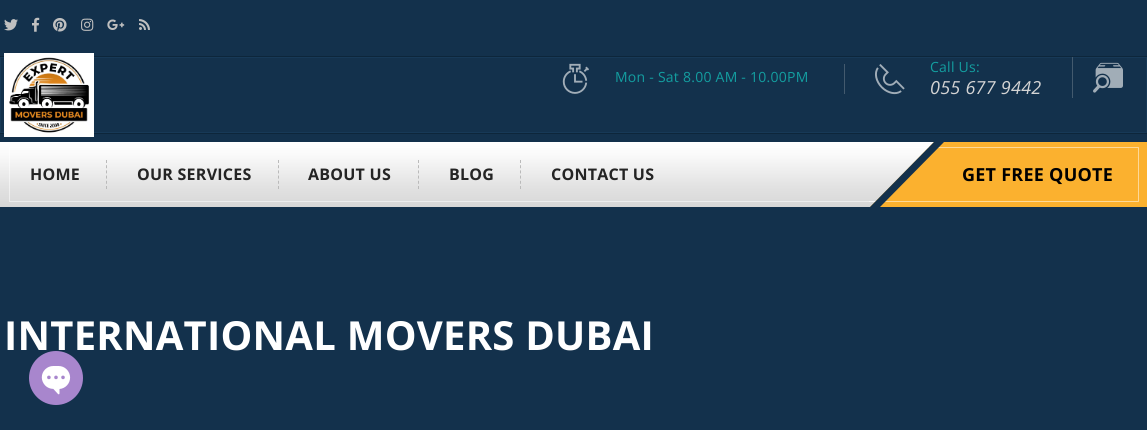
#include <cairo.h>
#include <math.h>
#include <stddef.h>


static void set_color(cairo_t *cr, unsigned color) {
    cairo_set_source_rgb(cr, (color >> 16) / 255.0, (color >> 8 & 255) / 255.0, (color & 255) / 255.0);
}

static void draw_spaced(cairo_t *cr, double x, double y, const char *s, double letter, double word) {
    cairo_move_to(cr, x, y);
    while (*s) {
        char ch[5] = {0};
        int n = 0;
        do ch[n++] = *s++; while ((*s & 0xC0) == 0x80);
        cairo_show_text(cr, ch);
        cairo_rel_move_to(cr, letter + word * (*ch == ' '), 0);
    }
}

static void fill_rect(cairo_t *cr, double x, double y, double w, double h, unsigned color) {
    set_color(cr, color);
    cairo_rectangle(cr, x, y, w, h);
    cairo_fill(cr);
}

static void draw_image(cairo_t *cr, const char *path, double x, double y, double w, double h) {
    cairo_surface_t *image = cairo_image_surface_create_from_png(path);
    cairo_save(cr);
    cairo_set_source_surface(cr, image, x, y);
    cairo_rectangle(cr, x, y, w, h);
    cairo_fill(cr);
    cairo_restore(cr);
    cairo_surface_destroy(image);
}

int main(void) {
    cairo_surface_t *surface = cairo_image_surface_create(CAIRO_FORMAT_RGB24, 1147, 430);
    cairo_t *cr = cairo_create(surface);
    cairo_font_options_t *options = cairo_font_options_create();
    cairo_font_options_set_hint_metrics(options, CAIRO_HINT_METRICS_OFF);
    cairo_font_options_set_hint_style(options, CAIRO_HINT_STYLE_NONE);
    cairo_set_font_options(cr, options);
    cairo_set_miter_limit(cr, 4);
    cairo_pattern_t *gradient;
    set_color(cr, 0x13314C);
    cairo_paint(cr);
    draw_image(cr, "assets/img1.png", 4, 19, 14, 12);
    draw_image(cr, "assets/img2.png", 32, 17, 8, 15);
    draw_image(cr, "assets/img3.png", 53, 18, 14, 14);
    draw_image(cr, "assets/img4.png", 81, 18, 13, 13);
    draw_image(cr, "assets/img5.png", 107, 19, 18, 11);
    draw_image(cr, "assets/img6.png", 139, 19, 11, 11);
    cairo_rectangle(cr, 0.5, 56.5, 1146, 77);
    set_color(cr, 0x0D263B);
    cairo_set_line_width(cr, 1);
    cairo_stroke(cr);
    cairo_rectangle(cr, 0.5, 57.5, 1146, 75);
    set_color(cr, 0x173957);
    cairo_stroke(cr);
    draw_image(cr, "assets/img7.png", 4, 53, 90, 84);
    draw_image(cr, "assets/img8.png", 562, 63, 27, 31);
    cairo_select_font_face(cr, "Open Sans", CAIRO_FONT_SLANT_NORMAL, CAIRO_FONT_WEIGHT_NORMAL);
    cairo_set_font_size(cr, 14);
    set_color(cr, 0x139EA0);
    draw_spaced(cr, 615, 82, "Mon - Sat 8.00 AM - 10.00PM", 0.25, 0);
    fill_rect(cr, 844, 64, 1, 30, 0x435A6E);
    draw_image(cr, "assets/img9.png", 875, 64, 30, 31);
    set_color(cr, 0x139EA0);
    draw_spaced(cr, 930, 72, "Call Us:", 0.25, 0);
    cairo_select_font_face(cr, "Open Sans", CAIRO_FONT_SLANT_ITALIC, CAIRO_FONT_WEIGHT_NORMAL);
    cairo_set_font_size(cr, 18);
    set_color(cr, 0xD4D4D4);
    draw_spaced(cr, 930, 94, "055 677 9442", 0.25, 0);
    fill_rect(cr, 1072, 57, 1, 41, 0x435A6E);
    draw_image(cr, "assets/img10.png", 1093, 62, 30, 31);
    fill_rect(cr, 1144, 142, 3, 65, 0xFBB12F);
    gradient = cairo_pattern_create_linear(144, 142, 144, 207);
    cairo_pattern_add_color_stop_rgba(gradient, 0, 1, 1, 1, 1);
    cairo_pattern_add_color_stop_rgba(gradient, 0.19, 0.98, 0.98, 0.98, 1);
    cairo_pattern_add_color_stop_rgba(gradient, 0.69, 0.886, 0.886, 0.886, 1);
    cairo_pattern_add_color_stop_rgba(gradient, 1, 0.843, 0.843, 0.843, 1);
    cairo_set_source(cr, gradient);
    cairo_pattern_destroy(gradient);
    cairo_rectangle(cr, 0, 142, 934, 65);
    cairo_fill(cr);
    cairo_rectangle(cr, 9.5, 147.5, 1129, 54);
    cairo_set_source_rgba(cr, 1, 1, 1, 0.5);
    cairo_stroke(cr);
    cairo_new_path(cr);
    cairo_move_to(cr, 106.5, 160);
    cairo_line_to(cr, 106.5, 189);
    set_color(cr, 0xBABABA);
    cairo_set_dash(cr, (double[]){3, 2.2}, 2, 0);
    cairo_stroke(cr);
    cairo_select_font_face(cr, "Open Sans", CAIRO_FONT_SLANT_NORMAL, CAIRO_FONT_WEIGHT_BOLD);
    cairo_set_font_size(cr, 16);
    set_color(cr, 0x242424);
    draw_spaced(cr, 30, 180, "HOME", 0.25, 0);
    cairo_new_path(cr);
    cairo_move_to(cr, 278.5, 160);
    cairo_line_to(cr, 278.5, 189);
    set_color(cr, 0xBABABA);
    cairo_stroke(cr);
    set_color(cr, 0x242424);
    draw_spaced(cr, 137, 180, "OUR SERVICES", 0.25, 0);
    cairo_new_path(cr);
    cairo_move_to(cr, 418.5, 160);
    cairo_line_to(cr, 418.5, 189);
    set_color(cr, 0xBABABA);
    cairo_stroke(cr);
    set_color(cr, 0x242424);
    draw_spaced(cr, 308, 180, "ABOUT US", 0.25, 0);
    cairo_new_path(cr);
    cairo_move_to(cr, 520.5, 160);
    cairo_line_to(cr, 520.5, 189);
    set_color(cr, 0xBABABA);
    cairo_stroke(cr);
    set_color(cr, 0x242424);
    draw_spaced(cr, 449, 180, "BLOG", 0.25, 0);
    draw_spaced(cr, 551, 180, "CONTACT US", 0.25, 0);
    fill_rect(cr, 950, 142, 194, 65, 0xFBB12F);
    cairo_new_path(cr);
    cairo_move_to(cr, 934, 142);
    cairo_line_to(cr, 1014, 142);
    cairo_line_to(cr, 950, 207);
    cairo_line_to(cr, 870, 207);
    cairo_close_path(cr);
    cairo_fill(cr);
    cairo_set_source_rgba(cr, 1, 1, 1, 0.5);
    cairo_new_path(cr);
    cairo_move_to(cr, 869, 147);
    cairo_line_to(cr, 1139, 147);
    cairo_line_to(cr, 1138, 148);
    cairo_line_to(cr, 869, 148);
    cairo_close_path(cr);
    cairo_fill(cr);
    cairo_new_path(cr);
    cairo_move_to(cr, 1139, 147);
    cairo_line_to(cr, 1139, 202);
    cairo_line_to(cr, 1138, 201);
    cairo_line_to(cr, 1138, 148);
    cairo_close_path(cr);
    cairo_fill(cr);
    cairo_new_path(cr);
    cairo_move_to(cr, 1139, 202);
    cairo_line_to(cr, 869, 202);
    cairo_line_to(cr, 869, 201);
    cairo_line_to(cr, 1138, 201);
    cairo_close_path(cr);
    cairo_fill(cr);
    set_color(cr, 0x13314C);
    cairo_new_path(cr);
    cairo_move_to(cr, 934, 142);
    cairo_line_to(cr, 944, 142);
    cairo_line_to(cr, 880, 207);
    cairo_line_to(cr, 870, 207);
    cairo_close_path(cr);
    cairo_fill(cr);
    cairo_set_font_size(cr, 18);
    set_color(cr, 0x010101);
    draw_spaced(cr, 962, 181, "GET FREE QUOTE", 0.25, 0);
    cairo_set_font_size(cr, 40);
    set_color(cr, 0xFFFFFF);
    draw_spaced(cr, 4, 350, "INTERNATIONAL MOVERS DUBAI", 0.25, 0);
    draw_image(cr, "assets/img11.png", 29, 351, 54, 54);
    cairo_surface_write_to_png(surface, "output.png");
    cairo_font_options_destroy(options);
    cairo_destroy(cr);
    cairo_surface_destroy(surface);
    return 0;
}
